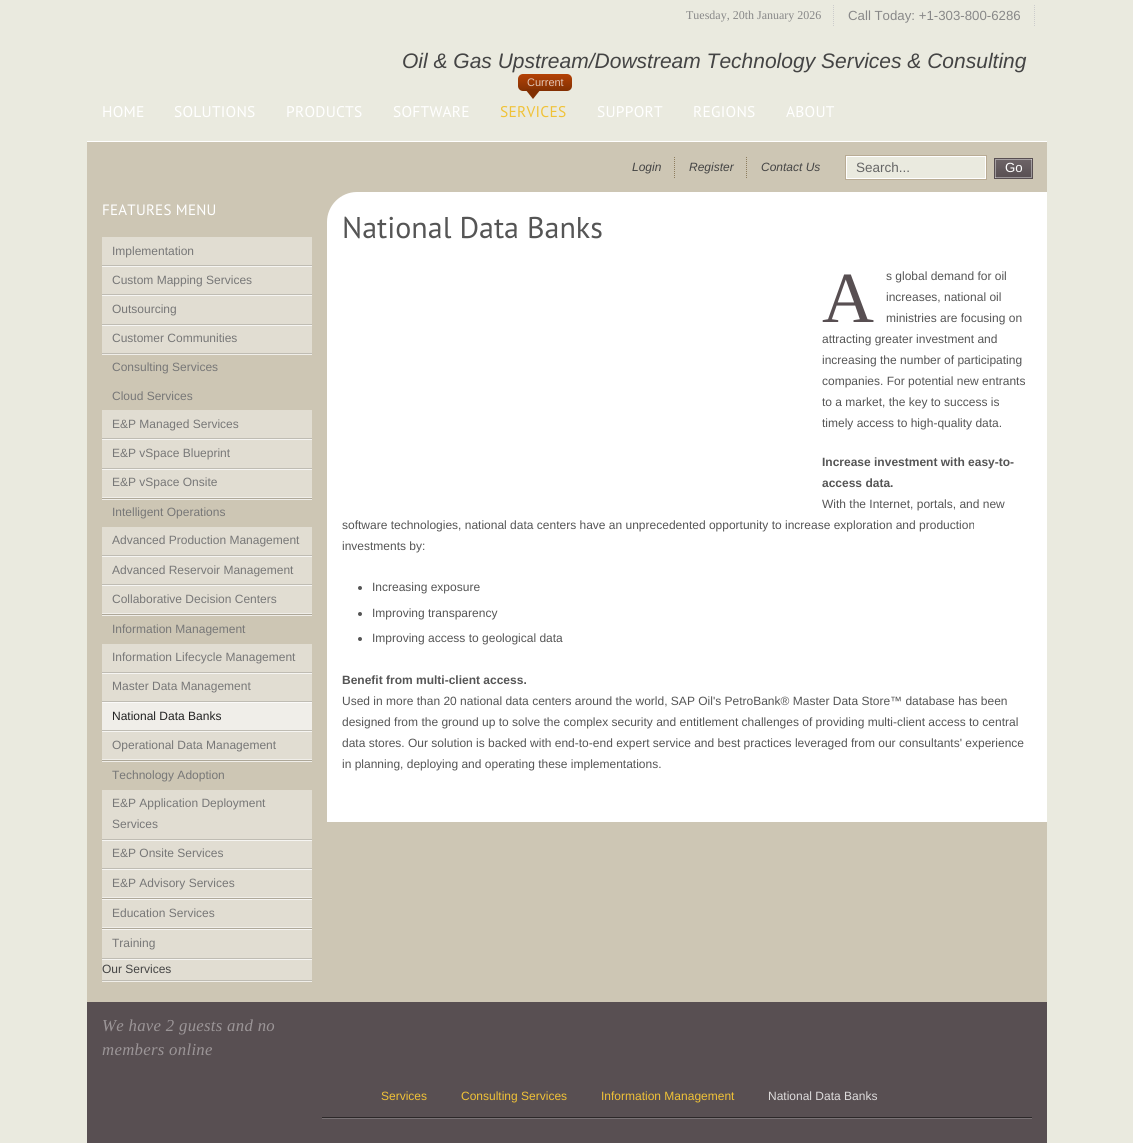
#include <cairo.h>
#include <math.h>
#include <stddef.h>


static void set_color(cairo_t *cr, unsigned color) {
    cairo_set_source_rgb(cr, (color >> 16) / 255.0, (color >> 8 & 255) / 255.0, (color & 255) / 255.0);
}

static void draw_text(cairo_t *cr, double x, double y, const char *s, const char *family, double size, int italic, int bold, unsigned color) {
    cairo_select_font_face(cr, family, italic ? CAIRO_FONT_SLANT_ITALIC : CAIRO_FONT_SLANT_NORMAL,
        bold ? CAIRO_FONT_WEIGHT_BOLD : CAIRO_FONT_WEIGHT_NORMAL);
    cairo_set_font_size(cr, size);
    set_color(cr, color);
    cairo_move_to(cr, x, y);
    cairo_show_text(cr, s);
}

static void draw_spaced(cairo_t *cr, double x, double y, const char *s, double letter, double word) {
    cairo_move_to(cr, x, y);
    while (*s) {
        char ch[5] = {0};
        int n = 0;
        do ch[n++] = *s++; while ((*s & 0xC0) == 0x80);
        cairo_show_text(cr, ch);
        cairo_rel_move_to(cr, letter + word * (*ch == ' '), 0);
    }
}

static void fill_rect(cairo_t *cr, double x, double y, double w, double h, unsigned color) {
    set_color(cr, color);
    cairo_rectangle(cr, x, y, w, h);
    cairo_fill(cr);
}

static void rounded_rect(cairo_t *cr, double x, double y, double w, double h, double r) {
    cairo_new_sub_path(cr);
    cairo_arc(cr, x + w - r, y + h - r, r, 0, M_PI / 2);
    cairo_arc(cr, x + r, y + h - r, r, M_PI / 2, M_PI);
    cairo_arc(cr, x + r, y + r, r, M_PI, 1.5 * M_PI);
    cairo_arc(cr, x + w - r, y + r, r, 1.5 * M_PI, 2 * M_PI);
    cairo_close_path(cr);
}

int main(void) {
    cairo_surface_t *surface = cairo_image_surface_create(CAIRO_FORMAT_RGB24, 1133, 1143);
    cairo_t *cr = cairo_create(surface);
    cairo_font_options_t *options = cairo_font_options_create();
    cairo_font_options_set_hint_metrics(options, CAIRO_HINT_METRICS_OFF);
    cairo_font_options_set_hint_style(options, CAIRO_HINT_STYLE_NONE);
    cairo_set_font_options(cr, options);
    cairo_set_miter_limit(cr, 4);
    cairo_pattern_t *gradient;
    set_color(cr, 0xEAEADF);
    cairo_paint(cr);
    cairo_new_path(cr);
    cairo_move_to(cr, 833.5, 5);
    cairo_line_to(cr, 833.5, 26);
    set_color(cr, 0xCCCCCC);
    cairo_set_line_width(cr, 1);
    cairo_set_dash(cr, (double[]){1, 1}, 2, 0);
    cairo_stroke(cr);
    draw_text(cr, 686, 19, "Tuesday, 20th January 2026", "Liberation Serif", 12, 0, 0, 0x888888);
    cairo_new_path(cr);
    cairo_move_to(cr, 1034.5, 5);
    cairo_line_to(cr, 1034.5, 26);
    set_color(cr, 0xCCCCCC);
    cairo_stroke(cr);
    draw_text(cr, 848, 20, "Call Today: +1-303-800-6286", "Liberation Sans", 13.25, 0, 0, 0x888888);
    draw_text(cr, 402, 68, "Oil & Gas Upstream/Dowstream Technology Services & Consulting", "Liberation Sans", 21, 1, 0, 0x444444);
    cairo_select_font_face(cr, "PT Sans", CAIRO_FONT_SLANT_NORMAL, CAIRO_FONT_WEIGHT_NORMAL);
    cairo_set_font_size(cr, 15.5);
    set_color(cr, 0xFFFFFF);
    draw_spaced(cr, 102, 117, "HOME", 0.25, 0);
    draw_spaced(cr, 174, 117, "SOLUTIONS", 0.25, 0);
    draw_spaced(cr, 286, 117, "PRODUCTS", 0.25, 0);
    draw_spaced(cr, 393, 117, "SOFTWARE", 0.25, 0);
    gradient = cairo_pattern_create_linear(545, 74, 545, 91);
    cairo_pattern_add_color_stop_rgba(gradient, 0, 0.706, 0.259, 0.02, 1);
    cairo_pattern_add_color_stop_rgba(gradient, 1, 0.51, 0.188, 0.012, 1);
    cairo_set_source(cr, gradient);
    cairo_pattern_destroy(gradient);
    rounded_rect(cr, 518, 74, 54, 17, 5);
    cairo_fill(cr);
    draw_text(cr, 527, 86, "Current", "Liberation Sans", 11, 0, 0, 0xE1C4B4);
    set_color(cr, 0x823003);
    cairo_new_path(cr);
    cairo_move_to(cr, 525, 89);
    cairo_line_to(cr, 541, 89);
    cairo_line_to(cr, 533, 99);
    cairo_close_path(cr);
    cairo_fill(cr);
    cairo_select_font_face(cr, "PT Sans", CAIRO_FONT_SLANT_NORMAL, CAIRO_FONT_WEIGHT_NORMAL);
    cairo_set_font_size(cr, 15.5);
    set_color(cr, 0xF0C237);
    draw_spaced(cr, 500, 117, "SERVICES", 0.25, 0);
    set_color(cr, 0xFFFFFF);
    draw_spaced(cr, 597, 117, "SUPPORT", 0.25, 0);
    draw_spaced(cr, 693, 117, "REGIONS", 0.25, 0);
    draw_spaced(cr, 786, 117, "ABOUT", 0.25, 0);
    fill_rect(cr, 87, 142, 960, 860, 0xCDC6B4);
    fill_rect(cr, 102, 960, 210, 20, 0xE1DDD2);
    fill_rect(cr, 102, 930, 210, 28, 0xE1DDD2);
    fill_rect(cr, 102, 900, 210, 27, 0xE1DDD2);
    fill_rect(cr, 102, 870, 210, 27, 0xE1DDD2);
    fill_rect(cr, 102, 841, 210, 27, 0xE1DDD2);
    fill_rect(cr, 102, 732, 210, 27, 0xE1DDD2);
    fill_rect(cr, 102, 703, 210, 27, 0xF0EEE9);
    fill_rect(cr, 102, 674, 210, 27, 0xE1DDD2);
    fill_rect(cr, 102, 586, 210, 27, 0xE1DDD2);
    fill_rect(cr, 102, 557, 210, 27, 0xE1DDD2);
    fill_rect(cr, 102, 470, 210, 27, 0xE1DDD2);
    fill_rect(cr, 102, 440, 210, 28, 0xE1DDD2);
    fill_rect(cr, 102, 326, 210, 27, 0xE1DDD2);
    fill_rect(cr, 102, 296, 210, 28, 0xE1DDD2);
    fill_rect(cr, 102, 267, 210, 27, 0xE1DDD2);
    fill_rect(cr, 87, 141, 960, 1, 0xFFFFFF);
    cairo_new_path(cr);
    cairo_move_to(cr, 674.5, 157);
    cairo_line_to(cr, 674.5, 178);
    set_color(cr, 0x8D7D5E);
    cairo_stroke(cr);
    draw_text(cr, 632, 171, "Login", "Liberation Sans", 12, 1, 0, 0x444444);
    cairo_new_path(cr);
    cairo_move_to(cr, 746.5, 157);
    cairo_line_to(cr, 746.5, 178);
    set_color(cr, 0x8D7D5E);
    cairo_stroke(cr);
    draw_text(cr, 689, 171, "Register", "Liberation Sans", 12, 1, 0, 0x444444);
    draw_text(cr, 761, 171, "Contact Us", "Liberation Sans", 12, 1, 0, 0x444444);
    fill_rect(cr, 847, 157, 138, 21, 0xEAEADF);
    cairo_save(cr);
    cairo_rectangle(cr, 846, 156, 140, 23);
    cairo_clip(cr);
    set_color(cr, 0xFFFFFF);
    cairo_set_fill_rule(cr, CAIRO_FILL_RULE_EVEN_ODD);
    cairo_new_path(cr);
    cairo_move_to(cr, 747, 57);
    cairo_line_to(cr, 1085, 57);
    cairo_line_to(cr, 1085, 278);
    cairo_line_to(cr, 747, 278);
    cairo_close_path(cr);
    cairo_move_to(cr, 847, 157);
    cairo_line_to(cr, 987, 157);
    cairo_line_to(cr, 987, 180);
    cairo_line_to(cr, 847, 180);
    cairo_close_path(cr);
    cairo_fill(cr);
    cairo_new_path(cr);
    cairo_move_to(cr, 747, 57);
    cairo_line_to(cr, 1085, 57);
    cairo_line_to(cr, 1085, 278);
    cairo_line_to(cr, 747, 278);
    cairo_close_path(cr);
    cairo_move_to(cr, 845, 155);
    cairo_line_to(cr, 985, 155);
    cairo_line_to(cr, 985, 178);
    cairo_line_to(cr, 845, 178);
    cairo_close_path(cr);
    cairo_fill(cr);
    cairo_restore(cr);
    cairo_rectangle(cr, 845.5, 155.5, 141, 24);
    set_color(cr, 0xB9AC95);
    cairo_set_dash(cr, NULL, 0, 0);
    cairo_stroke(cr);
    draw_text(cr, 856, 172, "Search...", "Liberation Sans", 13.5, 0, 0, 0x666666);
    gradient = cairo_pattern_create_linear(995, 159, 995, 178);
    cairo_pattern_add_color_stop_rgba(gradient, 0, 0.427, 0.392, 0.404, 1);
    cairo_pattern_add_color_stop_rgba(gradient, 1, 0.345, 0.31, 0.322, 1);
    cairo_set_source(cr, gradient);
    cairo_pattern_destroy(gradient);
    cairo_rectangle(cr, 995, 159, 37, 19);
    cairo_fill(cr);
    cairo_save(cr);
    cairo_rectangle(cr, 995, 159, 37, 19);
    cairo_clip(cr);
    cairo_set_source_rgba(cr, 1, 1, 1, 0.4);
    cairo_set_fill_rule(cr, CAIRO_FILL_RULE_EVEN_ODD);
    cairo_new_path(cr);
    cairo_move_to(cr, 896, 60);
    cairo_line_to(cr, 1131, 60);
    cairo_line_to(cr, 1131, 277);
    cairo_line_to(cr, 896, 277);
    cairo_close_path(cr);
    cairo_move_to(cr, 996, 160);
    cairo_line_to(cr, 1033, 160);
    cairo_line_to(cr, 1033, 179);
    cairo_line_to(cr, 996, 179);
    cairo_close_path(cr);
    cairo_fill(cr);
    cairo_new_path(cr);
    cairo_move_to(cr, 896, 60);
    cairo_line_to(cr, 1131, 60);
    cairo_line_to(cr, 1131, 277);
    cairo_line_to(cr, 896, 277);
    cairo_close_path(cr);
    cairo_move_to(cr, 994, 158);
    cairo_line_to(cr, 1031, 158);
    cairo_line_to(cr, 1031, 177);
    cairo_line_to(cr, 994, 177);
    cairo_close_path(cr);
    cairo_fill(cr);
    cairo_restore(cr);
    cairo_rectangle(cr, 994.5, 158.5, 38, 20);
    set_color(cr, 0x584F52);
    cairo_stroke(cr);
    draw_text(cr, 1005, 172, "Go", "Liberation Sans", 13.25, 0, 0, 0xFFFFFF);
    cairo_select_font_face(cr, "PT Sans", CAIRO_FONT_SLANT_NORMAL, CAIRO_FONT_WEIGHT_NORMAL);
    cairo_set_font_size(cr, 15);
    draw_spaced(cr, 102, 215, "FEATURES MENU", 0.25, 0);
    fill_rect(cr, 102, 266, 210, 1, 0xF6F5F2);
    fill_rect(cr, 102, 237, 210, 28, 0xE1DDD2);
    fill_rect(cr, 102, 265, 210, 1, 0xBFBCB3);
    draw_text(cr, 112, 255, "Implementation", "Liberation Sans", 12, 0, 0, 0x777777);
    fill_rect(cr, 102, 295, 210, 1, 0xF6F5F2);
    fill_rect(cr, 102, 294, 210, 1, 0xBFBCB3);
    draw_text(cr, 112, 284, "Custom Mapping Services", "Liberation Sans", 12, 0, 0, 0x777777);
    fill_rect(cr, 102, 325, 210, 1, 0xF6F5F2);
    fill_rect(cr, 102, 324, 210, 1, 0xBFBCB3);
    draw_text(cr, 112, 313, "Outsourcing", "Liberation Sans", 12, 0, 0, 0x777777);
    fill_rect(cr, 102, 354, 210, 1, 0xF0EEE9);
    fill_rect(cr, 102, 353, 210, 1, 0xBFBCB3);
    draw_text(cr, 112, 342, "Customer Communities", "Liberation Sans", 12, 0, 0, 0x777777);
    fill_rect(cr, 102, 929, 210, 1, 0xF6F5F2);
    fill_rect(cr, 102, 928, 210, 1, 0xAEA899);
    draw_text(cr, 112, 371, "Consulting Services", "Liberation Sans", 12, 0, 0, 0x777777);
    fill_rect(cr, 102, 499, 210, 1, 0xF0EEE9);
    fill_rect(cr, 102, 498, 210, 1, 0xAEA899);
    draw_text(cr, 112, 400, "Cloud Services", "Liberation Sans", 12, 0, 0, 0x777777);
    fill_rect(cr, 102, 439, 210, 1, 0xF6F5F2);
    fill_rect(cr, 102, 410, 210, 28, 0xE1DDD2);
    fill_rect(cr, 102, 438, 210, 1, 0xBFBCB3);
    draw_text(cr, 112, 428, "E&P Managed Services", "Liberation Sans", 12, 0, 0, 0x777777);
    fill_rect(cr, 102, 469, 210, 1, 0xF6F5F2);
    fill_rect(cr, 102, 468, 210, 1, 0xBFBCB3);
    draw_text(cr, 112, 457, "E&P vSpace Blueprint", "Liberation Sans", 12, 0, 0, 0x777777);
    fill_rect(cr, 102, 497, 210, 1, 0xF0EEE9);
    draw_text(cr, 112, 486, "E&P vSpace Onsite", "Liberation Sans", 12, 0, 0, 0x777777);
    fill_rect(cr, 102, 615, 210, 1, 0xF0EEE9);
    fill_rect(cr, 102, 614, 210, 1, 0xAEA899);
    draw_text(cr, 112, 516, "Intelligent Operations", "Liberation Sans", 12, 0, 0, 0x777777);
    fill_rect(cr, 102, 556, 210, 1, 0xF6F5F2);
    fill_rect(cr, 102, 527, 210, 28, 0xE1DDD2);
    fill_rect(cr, 102, 555, 210, 1, 0xBFBCB3);
    draw_text(cr, 112, 544, "Advanced Production Management", "Liberation Sans", 12, 0, 0, 0x777777);
    fill_rect(cr, 102, 585, 210, 1, 0xF6F5F2);
    fill_rect(cr, 102, 584, 210, 1, 0xBFBCB3);
    draw_text(cr, 112, 574, "Advanced Reservoir Management", "Liberation Sans", 12, 0, 0, 0x777777);
    fill_rect(cr, 102, 613, 210, 1, 0xF0EEE9);
    draw_text(cr, 112, 603, "Collaborative Decision Centers", "Liberation Sans", 12, 0, 0, 0x777777);
    fill_rect(cr, 102, 761, 210, 1, 0xF0EEE9);
    fill_rect(cr, 102, 760, 210, 1, 0xAEA899);
    draw_text(cr, 112, 633, "Information Management", "Liberation Sans", 12, 0, 0, 0x777777);
    fill_rect(cr, 102, 673, 210, 1, 0xF6F5F2);
    fill_rect(cr, 102, 644, 210, 28, 0xE1DDD2);
    fill_rect(cr, 102, 672, 210, 1, 0xBFBCB3);
    draw_text(cr, 112, 661, "Information Lifecycle Management", "Liberation Sans", 12, 0, 0, 0x777777);
    fill_rect(cr, 102, 702, 210, 1, 0xFBFAF9);
    fill_rect(cr, 102, 701, 210, 1, 0xBFBCB3);
    draw_text(cr, 112, 690, "Master Data Management", "Liberation Sans", 12, 0, 0, 0x777777);
    fill_rect(cr, 102, 731, 210, 1, 0xF6F5F2);
    fill_rect(cr, 102, 730, 210, 1, 0xBFBCB3);
    draw_text(cr, 112, 720, "National Data Banks", "Liberation Sans", 12, 0, 0, 0x222222);
    fill_rect(cr, 102, 759, 210, 1, 0xF0EEE9);
    draw_text(cr, 112, 749, "Operational Data Management", "Liberation Sans", 12, 0, 0, 0x777777);
    fill_rect(cr, 102, 899, 210, 1, 0xF6F5F2);
    fill_rect(cr, 102, 898, 210, 1, 0xAEA899);
    draw_text(cr, 112, 779, "Technology Adoption", "Liberation Sans", 12, 0, 0, 0x777777);
    fill_rect(cr, 102, 840, 210, 1, 0xF6F5F2);
    fill_rect(cr, 102, 790, 210, 49, 0xE1DDD2);
    fill_rect(cr, 102, 839, 210, 1, 0xBFBCB3);
    draw_text(cr, 112, 807, "E&P Application Deployment", "Liberation Sans", 12, 0, 0, 0x777777);
    draw_text(cr, 112, 828, "Services", "Liberation Sans", 12, 0, 0, 0x777777);
    fill_rect(cr, 102, 869, 210, 1, 0xF6F5F2);
    fill_rect(cr, 102, 868, 210, 1, 0xBFBCB3);
    draw_text(cr, 112, 857, "E&P Onsite Services", "Liberation Sans", 12, 0, 0, 0x777777);
    fill_rect(cr, 102, 897, 210, 1, 0xF0EEE9);
    draw_text(cr, 112, 887, "E&P Advisory Services", "Liberation Sans", 12, 0, 0, 0x777777);
    fill_rect(cr, 102, 927, 210, 1, 0xF0EEE9);
    draw_text(cr, 112, 917, "Education Services", "Liberation Sans", 12, 0, 0, 0x777777);
    fill_rect(cr, 102, 959, 210, 1, 0xF6F5F2);
    fill_rect(cr, 102, 958, 210, 1, 0xBFBCB3);
    draw_text(cr, 112, 947, "Training", "Liberation Sans", 12, 0, 0, 0x777777);
    fill_rect(cr, 102, 981, 210, 1, 0xF0EEE9);
    fill_rect(cr, 102, 980, 210, 1, 0xBFBCB3);
    draw_text(cr, 102, 973, "Our Services", "Liberation Sans", 12, 0, 0, 0x444444);
    set_color(cr, 0xFFFFFF);
    cairo_new_path(cr);
    cairo_move_to(cr, 357, 192);
    cairo_line_to(cr, 1047, 192);
    cairo_line_to(cr, 1047, 822);
    cairo_line_to(cr, 327, 822);
    cairo_line_to(cr, 327, 222);
    cairo_curve_to(cr, 327, 205.5, 340.5, 192, 357, 192);
    cairo_close_path(cr);
    cairo_fill(cr);
    draw_text(cr, 342, 238, "National Data Banks", "PT Sans", 30, 0, 0, 0x555555);
    draw_text(cr, 886, 280, "s global demand for oil", "Liberation Sans", 12, 0, 0, 0x555555);
    draw_text(cr, 886, 301, "increases, national oil", "Liberation Sans", 12, 0, 0, 0x555555);
    draw_text(cr, 886, 322, "ministries are focusing on", "Liberation Sans", 12, 0, 0, 0x555555);
    draw_text(cr, 822, 343, "attracting greater investment and", "Liberation Sans", 12, 0, 0, 0x555555);
    draw_text(cr, 822, 364, "increasing the number of participating", "Liberation Sans", 12, 0, 0, 0x555555);
    draw_text(cr, 822, 385, "companies. For potential new entrants", "Liberation Sans", 12, 0, 0, 0x555555);
    draw_text(cr, 822, 406, "to a market, the key to success is", "Liberation Sans", 12, 0, 0, 0x555555);
    draw_text(cr, 822, 427, "timely access to high-quality data.", "Liberation Sans", 12, 0, 0, 0x555555);
    draw_text(cr, 822, 322, "A", "Liberation Serif", 72, 0, 0, 0x584F52);
    draw_text(cr, 822, 466, "Increase investment with easy-to-", "Liberation Sans", 12, 0, 1, 0x555555);
    draw_text(cr, 822, 487, "access data.", "Liberation Sans", 12, 0, 1, 0x555555);
    draw_text(cr, 822, 508, "With the Internet, portals, and new", "Liberation Sans", 12, 0, 0, 0x555555);
    draw_text(cr, 342, 529, "software technologies, national data centers have an unprecedented opportunity to increase exploration and production", "Liberation Sans", 12, 0, 0, 0x555555);
    draw_text(cr, 342, 550, "investments by:", "Liberation Sans", 12, 0, 0, 0x555555);
    cairo_new_path(cr);
    cairo_arc(cr, 360, 588, 2, 0, 2 * M_PI);
    cairo_fill(cr);
    draw_text(cr, 372, 591, "Increasing exposure", "Liberation Sans", 12, 0, 0, 0x555555);
    cairo_new_path(cr);
    cairo_arc(cr, 360, 614, 2, 0, 2 * M_PI);
    cairo_fill(cr);
    draw_text(cr, 372, 617, "Improving transparency", "Liberation Sans", 12, 0, 0, 0x555555);
    cairo_new_path(cr);
    cairo_arc(cr, 360, 639, 2, 0, 2 * M_PI);
    cairo_fill(cr);
    draw_text(cr, 372, 642, "Improving access to geological data", "Liberation Sans", 12, 0, 0, 0x555555);
    draw_text(cr, 342, 684, "Benefit from multi-client access.", "Liberation Sans", 12, 0, 1, 0x555555);
    draw_text(cr, 342, 705, "Used in more than 20 national data centers around the world, SAP Oil's PetroBank® Master Data Store™ database has been", "Liberation Sans", 12, 0, 0, 0x555555);
    draw_text(cr, 342, 726, "designed from the ground up to solve the complex security and entitlement challenges of providing multi-client access to central", "Liberation Sans", 12, 0, 0, 0x555555);
    draw_text(cr, 342, 747, "data stores. Our solution is backed with end-to-end expert service and best practices leveraged from our consultants' experience", "Liberation Sans", 12, 0, 0, 0x555555);
    draw_text(cr, 342, 768, "in planning, deploying and operating these implementations.", "Liberation Sans", 12, 0, 0, 0x555555);
    fill_rect(cr, 87, 1002, 960, 141, 0x584F52);
    cairo_select_font_face(cr, "Liberation Serif", CAIRO_FONT_SLANT_ITALIC, CAIRO_FONT_WEIGHT_NORMAL);
    cairo_set_font_size(cr, 16.75);
    set_color(cr, 0x9B9597);
    draw_spaced(cr, 102, 1031, "We have 2 guests and no", 0.3, 0);
    draw_spaced(cr, 102, 1055, "members online", 0.3, 0);
    fill_rect(cr, 322, 1118, 710, 1, 0x797275);
    fill_rect(cr, 322, 1117, 710, 1, 0x2C2829);
    draw_text(cr, 381, 1100, "Services", "Liberation Sans", 12, 0, 0, 0xF0C237);
    draw_text(cr, 461, 1100, "Consulting Services", "Liberation Sans", 12, 0, 0, 0xF0C237);
    draw_text(cr, 601, 1100, "Information Management", "Liberation Sans", 12, 0, 0, 0xF0C237);
    draw_text(cr, 768, 1100, "National Data Banks", "Liberation Sans", 12, 0, 0, 0xDEDCDC);
    cairo_surface_write_to_png(surface, "output.png");
    cairo_font_options_destroy(options);
    cairo_destroy(cr);
    cairo_surface_destroy(surface);
    return 0;
}
